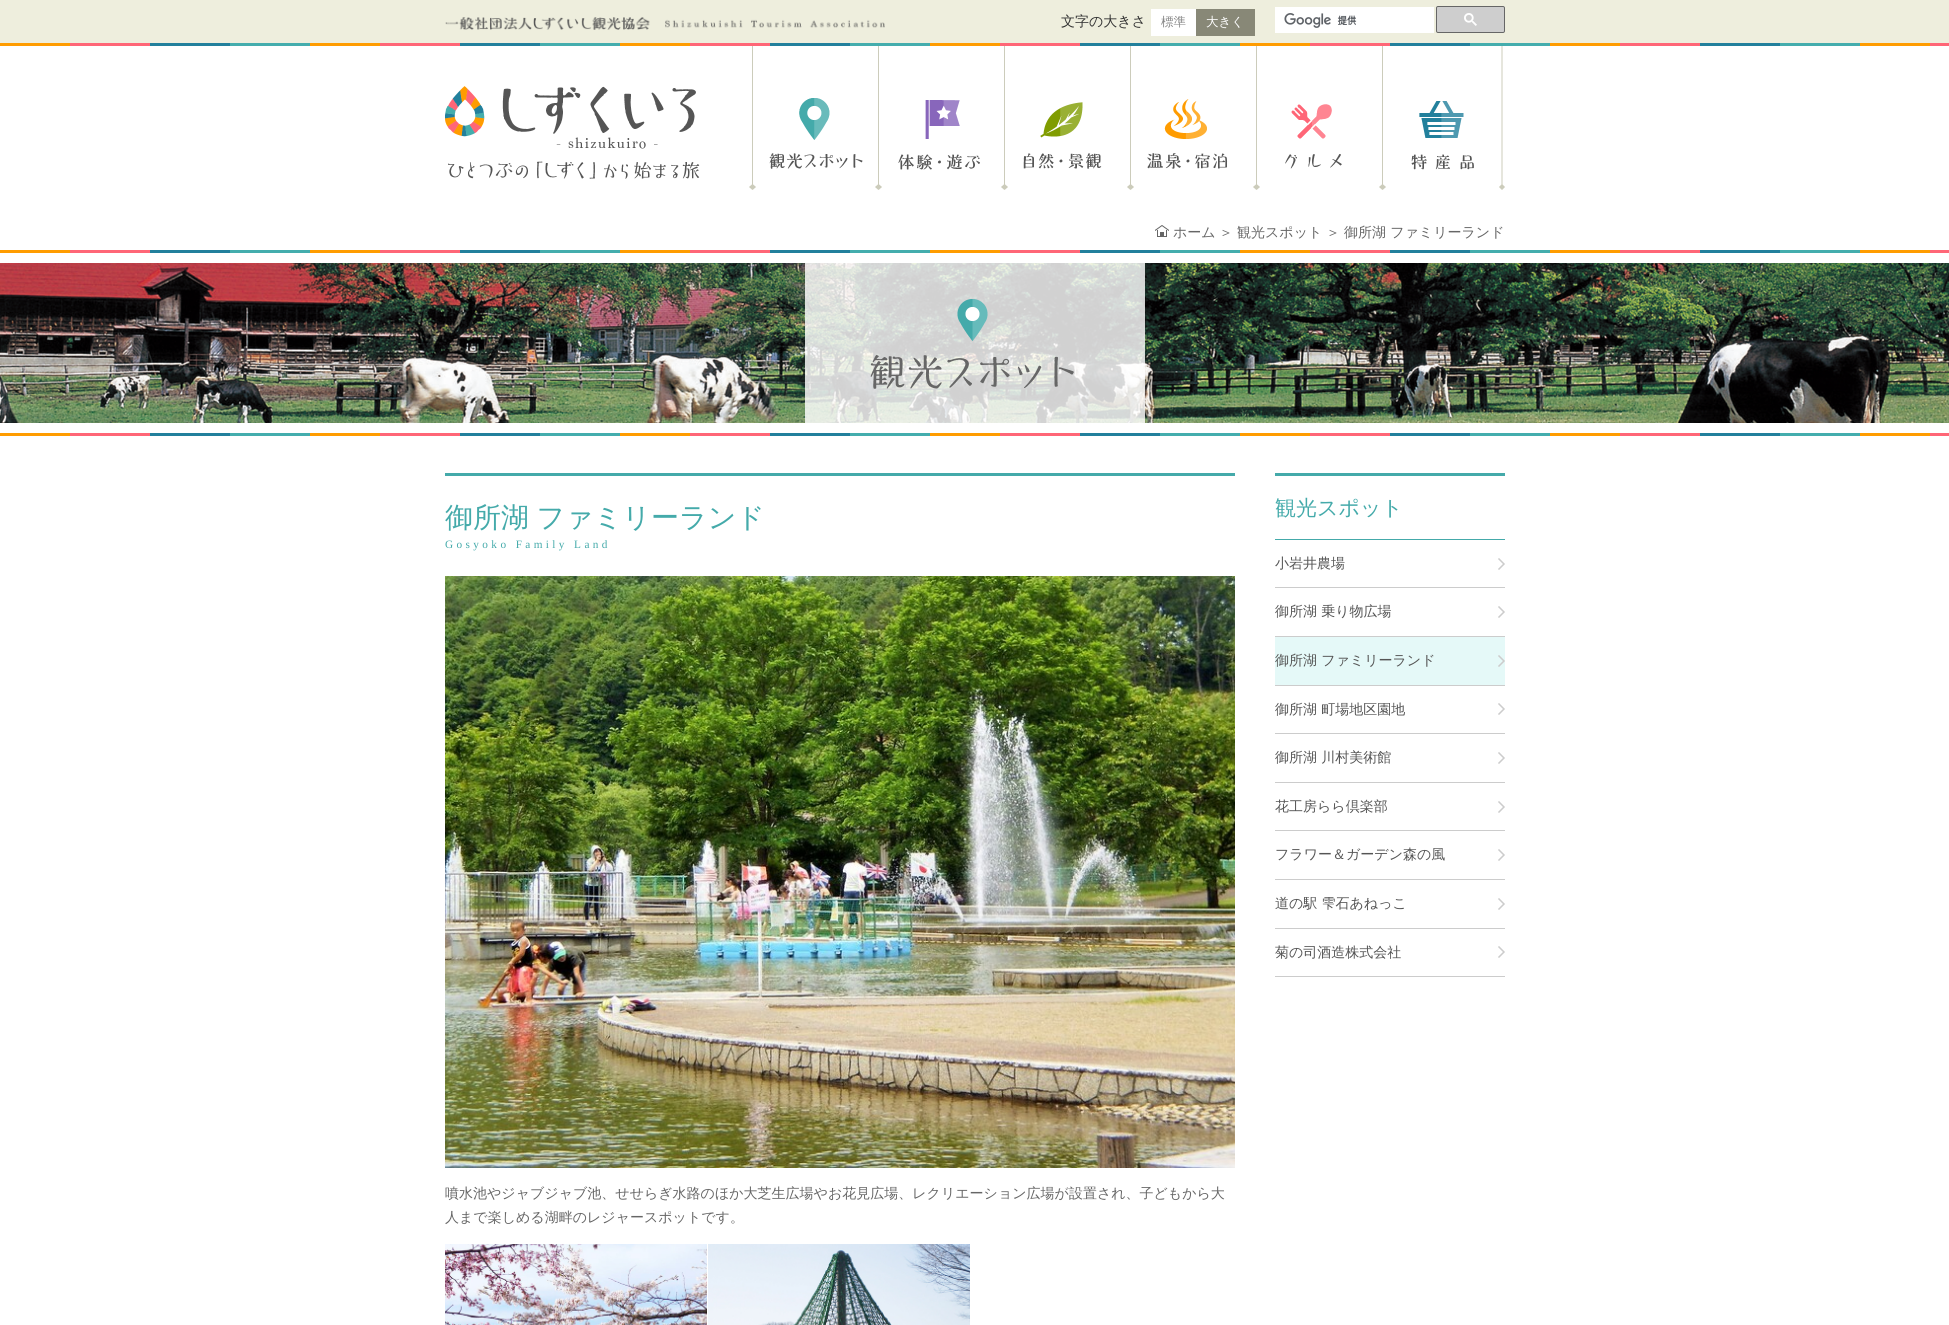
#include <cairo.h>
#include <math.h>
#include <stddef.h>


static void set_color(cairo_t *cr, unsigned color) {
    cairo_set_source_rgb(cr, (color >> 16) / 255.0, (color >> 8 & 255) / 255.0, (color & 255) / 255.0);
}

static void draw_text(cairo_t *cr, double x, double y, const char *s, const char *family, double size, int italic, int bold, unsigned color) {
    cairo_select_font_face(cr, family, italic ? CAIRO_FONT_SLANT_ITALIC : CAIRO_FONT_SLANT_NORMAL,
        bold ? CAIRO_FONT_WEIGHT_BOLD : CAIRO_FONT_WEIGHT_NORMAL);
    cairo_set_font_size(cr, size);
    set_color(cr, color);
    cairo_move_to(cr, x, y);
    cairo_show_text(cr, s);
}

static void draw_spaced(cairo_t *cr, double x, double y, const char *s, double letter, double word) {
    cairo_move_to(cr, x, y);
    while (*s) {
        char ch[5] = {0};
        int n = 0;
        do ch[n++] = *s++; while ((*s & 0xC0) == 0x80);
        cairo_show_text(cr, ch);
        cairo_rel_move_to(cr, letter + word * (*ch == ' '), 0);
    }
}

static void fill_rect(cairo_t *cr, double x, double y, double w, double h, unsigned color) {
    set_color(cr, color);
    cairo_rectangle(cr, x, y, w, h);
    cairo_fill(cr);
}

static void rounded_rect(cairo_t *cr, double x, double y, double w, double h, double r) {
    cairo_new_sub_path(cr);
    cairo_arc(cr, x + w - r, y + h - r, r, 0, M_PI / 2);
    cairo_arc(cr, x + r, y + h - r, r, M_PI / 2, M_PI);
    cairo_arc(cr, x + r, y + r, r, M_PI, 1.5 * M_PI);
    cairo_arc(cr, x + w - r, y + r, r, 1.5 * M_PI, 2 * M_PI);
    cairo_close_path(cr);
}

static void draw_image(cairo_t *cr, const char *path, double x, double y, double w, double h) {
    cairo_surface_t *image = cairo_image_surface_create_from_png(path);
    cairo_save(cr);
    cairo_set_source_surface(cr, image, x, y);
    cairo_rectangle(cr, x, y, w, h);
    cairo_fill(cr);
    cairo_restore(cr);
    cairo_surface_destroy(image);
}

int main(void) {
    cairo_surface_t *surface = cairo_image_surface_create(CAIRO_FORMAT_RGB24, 1949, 1325);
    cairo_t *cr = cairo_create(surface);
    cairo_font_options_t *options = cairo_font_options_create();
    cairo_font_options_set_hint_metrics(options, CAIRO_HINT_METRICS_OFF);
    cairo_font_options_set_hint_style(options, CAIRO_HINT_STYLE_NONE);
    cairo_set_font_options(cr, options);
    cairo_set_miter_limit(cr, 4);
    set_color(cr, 0xFFFFFF);
    cairo_paint(cr);
    fill_rect(cr, 0, 0, 1949, 43, 0xEEEEDD);
    draw_image(cr, "assets/img1.png", 445, 17, 440, 13);
    draw_text(cr, 1061, 26, "文字の大きさ", "WenQuanYi Zen Hei Medium", 14, 0, 0, 0x333333);
    fill_rect(cr, 1151, 9, 45, 27, 0xFFFFFF);
    draw_text(cr, 1161, 26, "標準", "WenQuanYi Zen Hei Medium", 12.5, 0, 0, 0x888888);
    fill_rect(cr, 1196, 9, 59, 27, 0x888877);
    draw_text(cr, 1206, 26, "大きく", "WenQuanYi Zen Hei Medium", 12.5, 0, 0, 0xFFFFFF);
    fill_rect(cr, 1275, 7, 159, 26, 0xFFFFFF);
    draw_image(cr, "assets/img2.png", 1284, 13, 73, 15);
    set_color(cr, 0xCECECE);
    rounded_rect(cr, 1436.5, 6.5, 68, 26, 1.5);
    cairo_fill_preserve(cr);
    set_color(cr, 0x666666);
    cairo_set_line_width(cr, 1);
    cairo_stroke(cr);
    draw_image(cr, "assets/img3.png", 1464, 13, 13, 13);
    draw_image(cr, "assets/img4.png", 0, 43, 1949, 210);
    draw_image(cr, "assets/img5.png", 445, 86, 255, 93);
    draw_image(cr, "assets/img6.png", 749, 46, 114, 144);
    draw_image(cr, "assets/img7.png", 875, 46, 105, 144);
    draw_image(cr, "assets/img8.png", 1001, 46, 101, 144);
    draw_image(cr, "assets/img9.png", 1127, 46, 101, 144);
    draw_image(cr, "assets/img10.png", 1253, 46, 89, 144);
    draw_image(cr, "assets/img11.png", 1379, 46, 126, 144);
    draw_image(cr, "assets/img12.png", 1155, 225, 14, 12);
    draw_text(cr, 1173, 237, "ホーム", "WenQuanYi Zen Hei Medium", 14, 0, 0, 0x666666);
    draw_text(cr, 1219, 237, "＞", "WenQuanYi Zen Hei Medium", 14, 0, 0, 0x666666);
    draw_text(cr, 1237, 237, "観光スポット", "WenQuanYi Zen Hei Medium", 14, 0, 0, 0x666666);
    draw_text(cr, 1326, 237, "＞", "WenQuanYi Zen Hei Medium", 14, 0, 0, 0x666666);
    draw_text(cr, 1344, 237, "御所湖 ファミリーランド", "WenQuanYi Zen Hei Medium", 14, 0, 0, 0x666666);
    draw_image(cr, "assets/img13.png", 0, 263, 1949, 160);
    draw_image(cr, "assets/img14.png", 870, 299, 204, 90);
    draw_image(cr, "assets/img15.png", 0, 433, 1949, 3);
    fill_rect(cr, 445, 473, 790, 3, 0x44AAAA);
    cairo_set_font_size(cr, 28);
    draw_spaced(cr, 445, 527, "御所湖 ファミリーランド", 0, -1);
    cairo_select_font_face(cr, "Liberation Serif", CAIRO_FONT_SLANT_NORMAL, CAIRO_FONT_WEIGHT_NORMAL);
    cairo_set_font_size(cr, 11.25);
    draw_spaced(cr, 445, 548, "Gosyoko Family Land", 3.4, 0);
    draw_image(cr, "assets/img16.png", 445, 576, 790, 592);
    draw_text(cr, 445, 1198, "噴水池やジャブジャブ池、せせらぎ水路のほか大芝生広場やお花見広場、レクリエーション広場が設置され、子どもから大", "WenQuanYi Zen Hei Medium", 14, 0, 0, 0x666666);
    draw_text(cr, 445, 1222, "人まで楽しめる湖畔のレジャースポットです。", "WenQuanYi Zen Hei Medium", 14, 0, 0, 0x666666);
    draw_image(cr, "assets/img17.png", 445, 1244, 262, 81);
    draw_image(cr, "assets/img18.png", 708, 1244, 262, 81);
    fill_rect(cr, 1275, 473, 230, 3, 0x44AAAA);
    fill_rect(cr, 1275, 539, 230, 1, 0x44AAAA);
    draw_text(cr, 1275, 515, "観光スポット", "WenQuanYi Zen Hei Medium", 21, 0, 0, 0x44AAAA);
    fill_rect(cr, 1275, 587, 230, 1, 0xCCCCCC);
    draw_image(cr, "assets/img19.png", 1498, 558, 7, 12);
    draw_text(cr, 1275, 568, "小岩井農場", "WenQuanYi Zen Hei Medium", 14, 0, 0, 0x555555);
    fill_rect(cr, 1275, 636, 230, 1, 0xCCCCCC);
    draw_image(cr, "assets/img19.png", 1498, 606, 7, 12);
    draw_text(cr, 1275, 616, "御所湖 乗り物広場", "WenQuanYi Zen Hei Medium", 14, 0, 0, 0x555555);
    fill_rect(cr, 1275, 637, 230, 48, 0xE5F9F8);
    fill_rect(cr, 1275, 685, 230, 1, 0xCCCCCC);
    draw_image(cr, "assets/img20.png", 1498, 655, 7, 12);
    draw_text(cr, 1275, 665, "御所湖 ファミリーランド", "WenQuanYi Zen Hei Medium", 14, 0, 0, 0x555555);
    fill_rect(cr, 1275, 733, 230, 1, 0xCCCCCC);
    draw_image(cr, "assets/img19.png", 1498, 703, 7, 12);
    draw_text(cr, 1275, 714, "御所湖 町場地区園地", "WenQuanYi Zen Hei Medium", 14, 0, 0, 0x555555);
    fill_rect(cr, 1275, 782, 230, 1, 0xCCCCCC);
    draw_image(cr, "assets/img19.png", 1498, 752, 7, 12);
    draw_text(cr, 1275, 762, "御所湖 川村美術館", "WenQuanYi Zen Hei Medium", 14, 0, 0, 0x555555);
    fill_rect(cr, 1275, 830, 230, 1, 0xCCCCCC);
    draw_image(cr, "assets/img19.png", 1498, 801, 7, 12);
    draw_text(cr, 1275, 811, "花工房らら倶楽部", "WenQuanYi Zen Hei Medium", 14, 0, 0, 0x555555);
    fill_rect(cr, 1275, 879, 230, 1, 0xCCCCCC);
    draw_image(cr, "assets/img19.png", 1498, 849, 7, 12);
    draw_text(cr, 1275, 859, "フラワー＆ガーデン森の風", "WenQuanYi Zen Hei Medium", 14, 0, 0, 0x555555);
    fill_rect(cr, 1275, 928, 230, 1, 0xCCCCCC);
    draw_image(cr, "assets/img19.png", 1498, 898, 7, 12);
    draw_text(cr, 1275, 908, "道の駅 雫石あねっこ", "WenQuanYi Zen Hei Medium", 14, 0, 0, 0x555555);
    fill_rect(cr, 1275, 976, 230, 1, 0xCCCCCC);
    draw_image(cr, "assets/img19.png", 1498, 946, 7, 12);
    draw_text(cr, 1275, 957, "菊の司酒造株式会社", "WenQuanYi Zen Hei Medium", 14, 0, 0, 0x555555);
    cairo_surface_write_to_png(surface, "output.png");
    cairo_font_options_destroy(options);
    cairo_destroy(cr);
    cairo_surface_destroy(surface);
    return 0;
}
